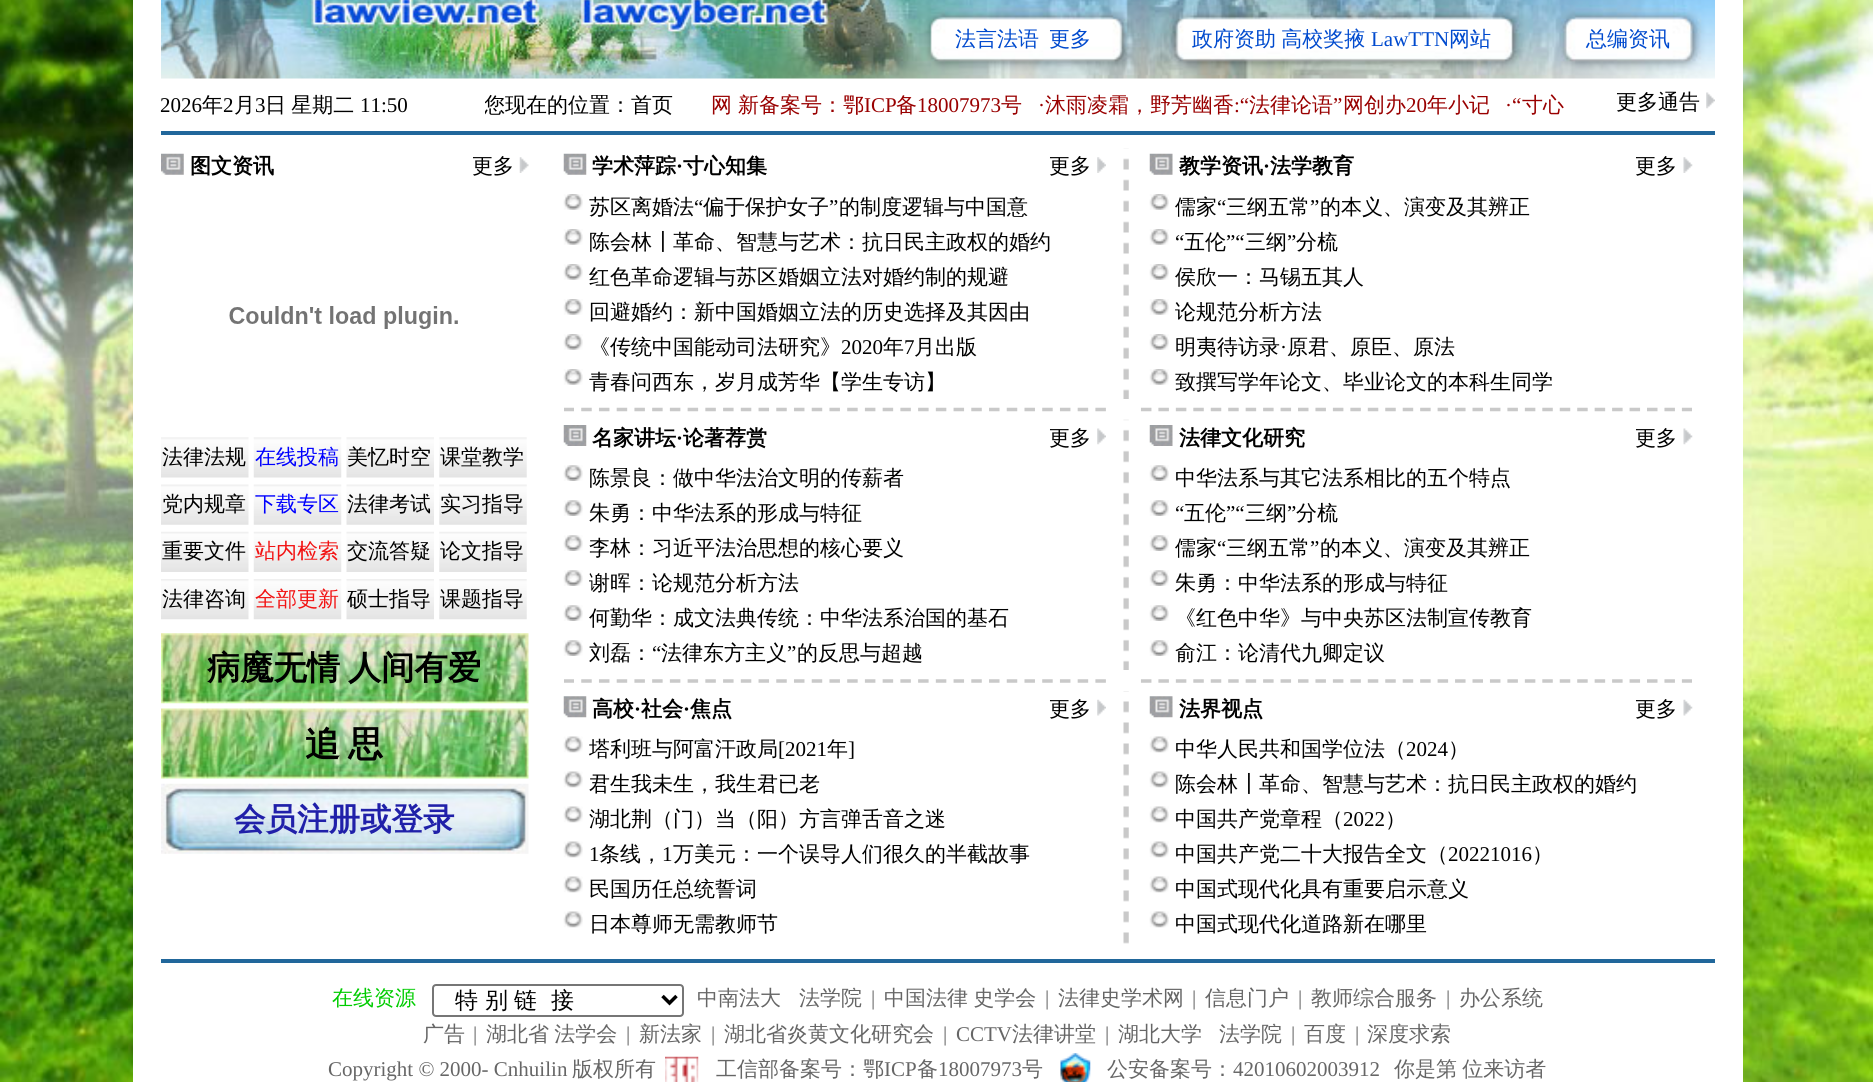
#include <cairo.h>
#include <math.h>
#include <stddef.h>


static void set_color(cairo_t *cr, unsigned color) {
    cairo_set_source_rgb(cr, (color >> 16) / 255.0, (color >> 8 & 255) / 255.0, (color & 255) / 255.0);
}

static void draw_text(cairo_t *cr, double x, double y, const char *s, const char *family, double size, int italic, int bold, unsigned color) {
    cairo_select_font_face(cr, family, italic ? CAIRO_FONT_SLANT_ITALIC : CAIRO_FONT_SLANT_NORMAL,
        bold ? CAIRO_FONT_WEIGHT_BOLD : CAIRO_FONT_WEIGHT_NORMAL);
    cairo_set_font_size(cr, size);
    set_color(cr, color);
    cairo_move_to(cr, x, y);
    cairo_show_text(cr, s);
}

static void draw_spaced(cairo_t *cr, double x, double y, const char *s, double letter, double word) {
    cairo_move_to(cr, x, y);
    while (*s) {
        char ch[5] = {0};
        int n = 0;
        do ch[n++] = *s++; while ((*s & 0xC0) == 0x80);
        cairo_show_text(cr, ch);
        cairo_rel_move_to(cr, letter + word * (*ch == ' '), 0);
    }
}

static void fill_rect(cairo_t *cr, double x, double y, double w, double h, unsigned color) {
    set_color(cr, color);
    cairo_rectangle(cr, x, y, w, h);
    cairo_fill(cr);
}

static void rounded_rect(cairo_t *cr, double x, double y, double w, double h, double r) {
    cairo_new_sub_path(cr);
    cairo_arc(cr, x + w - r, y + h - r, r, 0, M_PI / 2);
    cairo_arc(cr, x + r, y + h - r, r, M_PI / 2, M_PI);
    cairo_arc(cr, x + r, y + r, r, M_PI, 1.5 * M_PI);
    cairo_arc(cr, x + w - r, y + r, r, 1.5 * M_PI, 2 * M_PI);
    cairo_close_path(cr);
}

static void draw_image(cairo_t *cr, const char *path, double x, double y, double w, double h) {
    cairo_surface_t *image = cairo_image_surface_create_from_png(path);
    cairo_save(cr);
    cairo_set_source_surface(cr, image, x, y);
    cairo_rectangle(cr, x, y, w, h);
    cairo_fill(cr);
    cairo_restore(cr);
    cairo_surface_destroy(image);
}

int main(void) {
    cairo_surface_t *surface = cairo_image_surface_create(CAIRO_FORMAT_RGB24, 1873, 1082);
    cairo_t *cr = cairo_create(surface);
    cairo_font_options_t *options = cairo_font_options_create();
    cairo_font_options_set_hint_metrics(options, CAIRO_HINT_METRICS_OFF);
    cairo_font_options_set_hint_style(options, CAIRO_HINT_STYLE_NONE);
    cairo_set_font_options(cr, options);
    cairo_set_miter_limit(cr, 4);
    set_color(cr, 0xFFFFFF);
    cairo_paint(cr);
    draw_image(cr, "assets/img1.png", 0, 0, 1873, 1082);
    fill_rect(cr, 133, 0, 1610, 1082, 0xFFFFFF);
    draw_image(cr, "assets/img2.png", 161, 0, 1554, 79);
    draw_text(cr, 955, 46, "法言法语", "WenQuanYi Zen Hei Medium", 21, 0, 0, 0x004ACE);
    draw_text(cr, 1049, 46, "更多", "WenQuanYi Zen Hei Medium", 21, 0, 0, 0x004ACE);
    draw_spaced(cr, 1192, 46, "政府资助 高校奖掖", 0, -1);
    draw_text(cr, 1371, 46, "LawTTN", "Liberation Serif", 21, 0, 0, 0x004ACE);
    draw_text(cr, 1449, 46, "网站", "WenQuanYi Zen Hei Medium", 21, 0, 0, 0x004ACE);
    draw_text(cr, 1586, 46, "总编资讯", "WenQuanYi Zen Hei Medium", 21, 0, 0, 0x004ACE);
    draw_text(cr, 160, 112, "2026", "Liberation Serif", 21, 0, 0, 0x000000);
    draw_text(cr, 202, 112, "年", "WenQuanYi Zen Hei Medium", 21, 0, 0, 0x000000);
    draw_text(cr, 223, 112, "2", "Liberation Serif", 21, 0, 0, 0x000000);
    draw_text(cr, 234, 112, "月", "WenQuanYi Zen Hei Medium", 21, 0, 0, 0x000000);
    draw_text(cr, 255, 112, "3", "Liberation Serif", 21, 0, 0, 0x000000);
    cairo_select_font_face(cr, "WenQuanYi Zen Hei Medium", CAIRO_FONT_SLANT_NORMAL, CAIRO_FONT_WEIGHT_NORMAL);
    draw_spaced(cr, 265, 112, "日 星期二", 0, -1);
    draw_text(cr, 360, 112, "11:50", "Liberation Serif", 21, 0, 0, 0x000000);
    cairo_save(cr);
    cairo_rectangle(cr, 485, 88, 227, 35);
    cairo_clip(cr);
    draw_text(cr, 484, 112, "您现在的位置：首页", "WenQuanYi Zen Hei Medium", 21, 0, 0, 0x000000);
    cairo_restore(cr);
    draw_text(cr, 711, 112, "网", "WenQuanYi Zen Hei Medium", 21, 0, 0, 0x990000);
    draw_text(cr, 738, 112, "新备案号：鄂", "WenQuanYi Zen Hei Medium", 21, 0, 0, 0x990000);
    draw_text(cr, 864, 112, "ICP", "Liberation Serif", 21, 0, 0, 0x990000);
    draw_text(cr, 896, 112, "备", "WenQuanYi Zen Hei Medium", 21, 0, 0, 0x990000);
    draw_text(cr, 917, 112, "18007973", "Liberation Serif", 21, 0, 0, 0x990000);
    draw_text(cr, 1001, 112, "号", "WenQuanYi Zen Hei Medium", 21, 0, 0, 0x990000);
    draw_text(cr, 1038, 112, "·", "Liberation Serif", 21, 0, 0, 0x990000);
    draw_text(cr, 1045, 112, "沐雨凌霜，野芳幽香", "WenQuanYi Zen Hei Medium", 21, 0, 0, 0x990000);
    draw_text(cr, 1234, 112, ":“", "Liberation Serif", 21, 0, 0, 0x990000);
    draw_text(cr, 1249, 112, "法律论语", "WenQuanYi Zen Hei Medium", 21, 0, 0, 0x990000);
    draw_text(cr, 1333, 112, "”", "Liberation Serif", 21, 0, 0, 0x990000);
    draw_text(cr, 1343, 112, "网创办", "WenQuanYi Zen Hei Medium", 21, 0, 0, 0x990000);
    draw_text(cr, 1406, 112, "20", "Liberation Serif", 21, 0, 0, 0x990000);
    draw_text(cr, 1427, 112, "年小记", "WenQuanYi Zen Hei Medium", 21, 0, 0, 0x990000);
    draw_text(cr, 1505, 112, "·“", "Liberation Serif", 21, 0, 0, 0x990000);
    draw_text(cr, 1522, 112, "寸心", "WenQuanYi Zen Hei Medium", 21, 0, 0, 0x990000);
    draw_image(cr, "assets/img3.png", 1706, 92, 9, 17);
    draw_text(cr, 1616, 109, "更多通告", "WenQuanYi Zen Hei Medium", 21, 0, 0, 0x000000);
    fill_rect(cr, 161, 131, 1554, 4, 0x21679B);
    fill_rect(cr, 161, 959, 1554, 4, 0x21679B);
    draw_image(cr, "assets/img4.png", 161, 153, 23, 22);
    draw_text(cr, 190, 173, "图文资讯", "WenQuanYi Zen Hei", 21, 0, 1, 0x000000);
    draw_image(cr, "assets/img5.png", 519, 157, 10, 16);
    draw_text(cr, 472, 173, "更多", "WenQuanYi Zen Hei Medium", 21, 0, 0, 0x000000);
    draw_image(cr, "assets/img6.png", 229, 306, 229, 23);
    draw_image(cr, "assets/img7.png", 161, 437, 88, 41);
    draw_text(cr, 162, 464, "法律法规", "WenQuanYi Zen Hei Medium", 21, 0, 0, 0x000000);
    draw_image(cr, "assets/img8.png", 253, 437, 89, 41);
    draw_text(cr, 255, 464, "在线投稿", "WenQuanYi Zen Hei Medium", 21, 0, 0, 0x0000FF);
    draw_image(cr, "assets/img9.png", 346, 437, 88, 41);
    draw_text(cr, 347, 464, "美忆时空", "WenQuanYi Zen Hei Medium", 21, 0, 0, 0x000000);
    draw_image(cr, "assets/img10.png", 439, 437, 88, 41);
    draw_text(cr, 440, 464, "课堂教学", "WenQuanYi Zen Hei Medium", 21, 0, 0, 0x000000);
    draw_image(cr, "assets/img11.png", 161, 484, 88, 41);
    draw_text(cr, 162, 511, "党内规章", "WenQuanYi Zen Hei Medium", 21, 0, 0, 0x000000);
    draw_image(cr, "assets/img12.png", 253, 484, 89, 41);
    draw_text(cr, 255, 511, "下载专区", "WenQuanYi Zen Hei Medium", 21, 0, 0, 0x0000FF);
    draw_image(cr, "assets/img13.png", 346, 484, 88, 41);
    draw_text(cr, 347, 511, "法律考试", "WenQuanYi Zen Hei Medium", 21, 0, 0, 0x000000);
    draw_image(cr, "assets/img14.png", 439, 484, 88, 41);
    draw_text(cr, 440, 511, "实习指导", "WenQuanYi Zen Hei Medium", 21, 0, 0, 0x000000);
    draw_image(cr, "assets/img15.png", 161, 531, 88, 41);
    draw_text(cr, 162, 558, "重要文件", "WenQuanYi Zen Hei Medium", 21, 0, 0, 0x000000);
    draw_image(cr, "assets/img16.png", 253, 531, 89, 41);
    draw_text(cr, 255, 558, "站内检索", "WenQuanYi Zen Hei Medium", 21, 0, 0, 0xF21313);
    draw_image(cr, "assets/img17.png", 346, 531, 88, 41);
    draw_text(cr, 347, 558, "交流答疑", "WenQuanYi Zen Hei Medium", 21, 0, 0, 0x000000);
    draw_image(cr, "assets/img18.png", 439, 531, 88, 41);
    draw_text(cr, 440, 558, "论文指导", "WenQuanYi Zen Hei Medium", 21, 0, 0, 0x000000);
    draw_image(cr, "assets/img19.png", 161, 579, 88, 41);
    draw_text(cr, 162, 606, "法律咨询", "WenQuanYi Zen Hei Medium", 21, 0, 0, 0x000000);
    draw_image(cr, "assets/img20.png", 253, 579, 89, 41);
    draw_text(cr, 255, 606, "全部更新", "WenQuanYi Zen Hei Medium", 21, 0, 0, 0xF21313);
    draw_image(cr, "assets/img21.png", 346, 579, 88, 41);
    draw_text(cr, 347, 606, "硕士指导", "WenQuanYi Zen Hei Medium", 21, 0, 0, 0x000000);
    draw_image(cr, "assets/img22.png", 439, 579, 88, 41);
    draw_text(cr, 440, 606, "课题指导", "WenQuanYi Zen Hei Medium", 21, 0, 0, 0x000000);
    draw_image(cr, "assets/img23.png", 161, 633, 368, 71);
    cairo_select_font_face(cr, "WenQuanYi Zen Hei", CAIRO_FONT_SLANT_NORMAL, CAIRO_FONT_WEIGHT_BOLD);
    cairo_set_font_size(cr, 33.25);
    draw_spaced(cr, 207, 679, "病魔无情 人间有爱", 0, -2);
    draw_image(cr, "assets/img24.png", 161, 708, 368, 71);
    draw_text(cr, 305, 756, "追", "WenQuanYi Zen Hei", 35, 0, 1, 0x000000);
    draw_text(cr, 348, 756, "思", "WenQuanYi Zen Hei", 35, 0, 1, 0x000000);
    draw_image(cr, "assets/img25.png", 161, 783, 368, 71);
    draw_text(cr, 234, 830, "会员注册或登录", "WenQuanYi Zen Hei", 31.5, 0, 1, 0x2020A9);
    cairo_save(cr);
    cairo_rectangle(cr, 564, 149, 1151, 810);
    cairo_clip(cr);
    cairo_new_path(cr);
    cairo_move_to(cr, 563.5, 409.5);
    cairo_line_to(cr, 1106, 409.5);
    set_color(cr, 0xC9C9C9);
    cairo_set_line_width(cr, 3.5);
    cairo_set_dash(cr, (double[]){10.5, 7.23}, 2, 0);
    cairo_stroke(cr);
    cairo_restore(cr);
    draw_image(cr, "assets/img26.png", 563, 153, 24, 22);
    draw_text(cr, 592, 173, "学术萍踪", "WenQuanYi Zen Hei", 21, 0, 1, 0x000000);
    draw_text(cr, 676, 173, "·", "Liberation Serif", 21, 0, 1, 0x000000);
    draw_text(cr, 683, 173, "寸心知集", "WenQuanYi Zen Hei", 21, 0, 1, 0x000000);
    draw_image(cr, "assets/img27.png", 1097, 157, 9, 16);
    draw_text(cr, 1049, 173, "更多", "WenQuanYi Zen Hei Medium", 21, 0, 0, 0x000000);
    draw_image(cr, "assets/img28.png", 563, 194, 20, 16);
    draw_text(cr, 589, 214, "苏区离婚法", "WenQuanYi Zen Hei Medium", 21, 0, 0, 0x000000);
    draw_text(cr, 694, 214, "“", "Liberation Serif", 21, 0, 0, 0x000000);
    draw_text(cr, 703, 214, "偏于保护女子", "WenQuanYi Zen Hei Medium", 21, 0, 0, 0x000000);
    draw_text(cr, 829, 214, "”", "Liberation Serif", 21, 0, 0, 0x000000);
    draw_text(cr, 839, 214, "的制度逻辑与中国意", "WenQuanYi Zen Hei Medium", 21, 0, 0, 0x000000);
    draw_image(cr, "assets/img28.png", 563, 229, 20, 16);
    draw_text(cr, 589, 249, "陈会林┃革命、智慧与艺术：抗日民主政权的婚约", "WenQuanYi Zen Hei Medium", 21, 0, 0, 0x000000);
    draw_image(cr, "assets/img28.png", 563, 264, 20, 16);
    draw_text(cr, 589, 284, "红色革命逻辑与苏区婚姻立法对婚约制的规避", "WenQuanYi Zen Hei Medium", 21, 0, 0, 0x000000);
    draw_image(cr, "assets/img28.png", 563, 299, 20, 16);
    draw_text(cr, 589, 319, "回避婚约：新中国婚姻立法的历史选择及其因由", "WenQuanYi Zen Hei Medium", 21, 0, 0, 0x000000);
    draw_image(cr, "assets/img28.png", 563, 334, 20, 16);
    draw_text(cr, 589, 354, "《传统中国能动司法研究》", "WenQuanYi Zen Hei Medium", 21, 0, 0, 0x000000);
    draw_text(cr, 841, 354, "2020", "Liberation Serif", 21, 0, 0, 0x000000);
    draw_text(cr, 883, 354, "年", "WenQuanYi Zen Hei Medium", 21, 0, 0, 0x000000);
    draw_text(cr, 904, 354, "7", "Liberation Serif", 21, 0, 0, 0x000000);
    draw_text(cr, 914, 354, "月出版", "WenQuanYi Zen Hei Medium", 21, 0, 0, 0x000000);
    draw_image(cr, "assets/img28.png", 563, 369, 20, 16);
    draw_text(cr, 589, 389, "青春问西东，岁月成芳华【学生专访】", "WenQuanYi Zen Hei Medium", 21, 0, 0, 0x000000);
    draw_image(cr, "assets/img29.png", 1123, 148, 6, 251);
    cairo_new_path(cr);
    cairo_move_to(cr, 1123.5, 409.5);
    cairo_line_to(cr, 1692, 409.5);
    set_color(cr, 0xC9C9C9);
    cairo_set_line_width(cr, 3.5);
    cairo_set_dash(cr, (double[]){10.5, 6.95}, 2, 0);
    cairo_stroke(cr);
    draw_image(cr, "assets/img30.png", 1149, 153, 24, 22);
    draw_text(cr, 1179, 173, "教学资讯", "WenQuanYi Zen Hei", 21, 0, 1, 0x000000);
    draw_text(cr, 1263, 173, "·", "Liberation Serif", 21, 0, 1, 0x000000);
    draw_text(cr, 1270, 173, "法学教育", "WenQuanYi Zen Hei", 21, 0, 1, 0x000000);
    draw_image(cr, "assets/img31.png", 1683, 157, 10, 16);
    draw_text(cr, 1635, 173, "更多", "WenQuanYi Zen Hei Medium", 21, 0, 0, 0x000000);
    draw_image(cr, "assets/img32.png", 1149, 194, 20, 16);
    draw_text(cr, 1175, 214, "儒家", "WenQuanYi Zen Hei Medium", 21, 0, 0, 0x000000);
    draw_text(cr, 1217, 214, "“", "Liberation Serif", 21, 0, 0, 0x000000);
    draw_text(cr, 1226, 214, "三纲五常", "WenQuanYi Zen Hei Medium", 21, 0, 0, 0x000000);
    draw_text(cr, 1310, 214, "”", "Liberation Serif", 21, 0, 0, 0x000000);
    draw_text(cr, 1320, 214, "的本义、演变及其辨正", "WenQuanYi Zen Hei Medium", 21, 0, 0, 0x000000);
    draw_image(cr, "assets/img32.png", 1149, 229, 20, 16);
    draw_text(cr, 1175, 249, "“", "Liberation Serif", 21, 0, 0, 0x000000);
    draw_text(cr, 1184, 249, "五伦", "WenQuanYi Zen Hei Medium", 21, 0, 0, 0x000000);
    draw_text(cr, 1226, 249, "”“", "Liberation Serif", 21, 0, 0, 0x000000);
    draw_text(cr, 1245, 249, "三纲", "WenQuanYi Zen Hei Medium", 21, 0, 0, 0x000000);
    draw_text(cr, 1287, 249, "”", "Liberation Serif", 21, 0, 0, 0x000000);
    draw_text(cr, 1296, 249, "分梳", "WenQuanYi Zen Hei Medium", 21, 0, 0, 0x000000);
    draw_image(cr, "assets/img32.png", 1149, 264, 20, 16);
    draw_text(cr, 1175, 284, "侯欣一：马锡五其人", "WenQuanYi Zen Hei Medium", 21, 0, 0, 0x000000);
    draw_image(cr, "assets/img32.png", 1149, 299, 20, 16);
    draw_text(cr, 1175, 319, "论规范分析方法", "WenQuanYi Zen Hei Medium", 21, 0, 0, 0x000000);
    draw_image(cr, "assets/img32.png", 1149, 334, 20, 16);
    draw_text(cr, 1175, 354, "明夷待访录", "WenQuanYi Zen Hei Medium", 21, 0, 0, 0x000000);
    draw_text(cr, 1280, 354, "·", "Liberation Serif", 21, 0, 0, 0x000000);
    draw_text(cr, 1287, 354, "原君、原臣、原法", "WenQuanYi Zen Hei Medium", 21, 0, 0, 0x000000);
    draw_image(cr, "assets/img32.png", 1149, 369, 20, 16);
    draw_text(cr, 1175, 389, "致撰写学年论文、毕业论文的本科生同学", "WenQuanYi Zen Hei Medium", 21, 0, 0, 0x000000);
    fill_rect(cr, 1123, 407, 11, 5, 0xFFFFFF);
    cairo_save(cr);
    cairo_rectangle(cr, 564, 149, 1151, 810);
    cairo_clip(cr);
    cairo_new_path(cr);
    cairo_move_to(cr, 563.5, 681);
    cairo_line_to(cr, 1106, 681);
    set_color(cr, 0xC9C9C9);
    cairo_set_dash(cr, (double[]){10.5, 7.23}, 2, 0);
    cairo_stroke(cr);
    cairo_restore(cr);
    draw_image(cr, "assets/img33.png", 563, 425, 24, 21);
    draw_text(cr, 592, 445, "名家讲坛", "WenQuanYi Zen Hei", 21, 0, 1, 0x000000);
    draw_text(cr, 676, 445, "·", "Liberation Serif", 21, 0, 1, 0x000000);
    draw_text(cr, 683, 445, "论著荐赏", "WenQuanYi Zen Hei", 21, 0, 1, 0x000000);
    draw_image(cr, "assets/img3.png", 1097, 428, 9, 17);
    draw_text(cr, 1049, 445, "更多", "WenQuanYi Zen Hei Medium", 21, 0, 0, 0x000000);
    draw_image(cr, "assets/img34.png", 563, 465, 20, 16);
    draw_text(cr, 589, 485, "陈景良：做中华法治文明的传薪者", "WenQuanYi Zen Hei Medium", 21, 0, 0, 0x000000);
    draw_image(cr, "assets/img34.png", 563, 500, 20, 16);
    draw_text(cr, 589, 520, "朱勇：中华法系的形成与特征", "WenQuanYi Zen Hei Medium", 21, 0, 0, 0x000000);
    draw_image(cr, "assets/img34.png", 563, 535, 20, 16);
    draw_text(cr, 589, 555, "李林：习近平法治思想的核心要义", "WenQuanYi Zen Hei Medium", 21, 0, 0, 0x000000);
    draw_image(cr, "assets/img34.png", 563, 570, 20, 16);
    draw_text(cr, 589, 590, "谢晖：论规范分析方法", "WenQuanYi Zen Hei Medium", 21, 0, 0, 0x000000);
    draw_image(cr, "assets/img34.png", 563, 605, 20, 16);
    draw_text(cr, 589, 625, "何勤华：成文法典传统：中华法系治国的基石", "WenQuanYi Zen Hei Medium", 21, 0, 0, 0x000000);
    draw_image(cr, "assets/img34.png", 563, 640, 20, 16);
    draw_text(cr, 589, 660, "刘磊：", "WenQuanYi Zen Hei Medium", 21, 0, 0, 0x000000);
    draw_text(cr, 652, 660, "“", "Liberation Serif", 21, 0, 0, 0x000000);
    draw_text(cr, 661, 660, "法律东方主义", "WenQuanYi Zen Hei Medium", 21, 0, 0, 0x000000);
    draw_text(cr, 787, 660, "”", "Liberation Serif", 21, 0, 0, 0x000000);
    draw_text(cr, 797, 660, "的反思与超越", "WenQuanYi Zen Hei Medium", 21, 0, 0, 0x000000);
    draw_image(cr, "assets/img35.png", 1123, 419, 6, 251);
    cairo_new_path(cr);
    cairo_move_to(cr, 1123.5, 681);
    cairo_line_to(cr, 1692, 681);
    set_color(cr, 0xC9C9C9);
    cairo_stroke(cr);
    draw_image(cr, "assets/img36.png", 1149, 425, 24, 21);
    draw_text(cr, 1179, 445, "法律文化研究", "WenQuanYi Zen Hei", 21, 0, 1, 0x000000);
    draw_image(cr, "assets/img37.png", 1683, 428, 10, 17);
    draw_text(cr, 1635, 445, "更多", "WenQuanYi Zen Hei Medium", 21, 0, 0, 0x000000);
    draw_image(cr, "assets/img38.png", 1149, 465, 20, 16);
    draw_text(cr, 1175, 485, "中华法系与其它法系相比的五个特点", "WenQuanYi Zen Hei Medium", 21, 0, 0, 0x000000);
    draw_image(cr, "assets/img38.png", 1149, 500, 20, 16);
    draw_text(cr, 1175, 520, "“", "Liberation Serif", 21, 0, 0, 0x000000);
    draw_text(cr, 1184, 520, "五伦", "WenQuanYi Zen Hei Medium", 21, 0, 0, 0x000000);
    draw_text(cr, 1226, 520, "”“", "Liberation Serif", 21, 0, 0, 0x000000);
    draw_text(cr, 1245, 520, "三纲", "WenQuanYi Zen Hei Medium", 21, 0, 0, 0x000000);
    draw_text(cr, 1287, 520, "”", "Liberation Serif", 21, 0, 0, 0x000000);
    draw_text(cr, 1296, 520, "分梳", "WenQuanYi Zen Hei Medium", 21, 0, 0, 0x000000);
    draw_image(cr, "assets/img38.png", 1149, 535, 20, 16);
    draw_text(cr, 1175, 555, "儒家", "WenQuanYi Zen Hei Medium", 21, 0, 0, 0x000000);
    draw_text(cr, 1217, 555, "“", "Liberation Serif", 21, 0, 0, 0x000000);
    draw_text(cr, 1226, 555, "三纲五常", "WenQuanYi Zen Hei Medium", 21, 0, 0, 0x000000);
    draw_text(cr, 1310, 555, "”", "Liberation Serif", 21, 0, 0, 0x000000);
    draw_text(cr, 1320, 555, "的本义、演变及其辨正", "WenQuanYi Zen Hei Medium", 21, 0, 0, 0x000000);
    draw_image(cr, "assets/img38.png", 1149, 570, 20, 16);
    draw_text(cr, 1175, 590, "朱勇：中华法系的形成与特征", "WenQuanYi Zen Hei Medium", 21, 0, 0, 0x000000);
    draw_image(cr, "assets/img38.png", 1149, 605, 20, 16);
    draw_text(cr, 1175, 625, "《红色中华》与中央苏区法制宣传教育", "WenQuanYi Zen Hei Medium", 21, 0, 0, 0x000000);
    draw_image(cr, "assets/img38.png", 1149, 640, 20, 16);
    draw_text(cr, 1175, 660, "俞江：论清代九卿定议", "WenQuanYi Zen Hei Medium", 21, 0, 0, 0x000000);
    fill_rect(cr, 1123, 679, 11, 4, 0xFFFFFF);
    draw_image(cr, "assets/img39.png", 563, 696, 24, 22);
    draw_text(cr, 592, 716, "高校", "WenQuanYi Zen Hei", 21, 0, 1, 0x000000);
    draw_text(cr, 634, 716, "·", "Liberation Serif", 21, 0, 1, 0x000000);
    draw_text(cr, 641, 716, "社会", "WenQuanYi Zen Hei", 21, 0, 1, 0x000000);
    draw_text(cr, 683, 716, "·", "Liberation Serif", 21, 0, 1, 0x000000);
    draw_text(cr, 690, 716, "焦点", "WenQuanYi Zen Hei", 21, 0, 1, 0x000000);
    draw_image(cr, "assets/img40.png", 1097, 699, 9, 17);
    draw_text(cr, 1049, 716, "更多", "WenQuanYi Zen Hei Medium", 21, 0, 0, 0x000000);
    draw_image(cr, "assets/img41.png", 563, 736, 20, 17);
    draw_text(cr, 589, 756, "塔利班与阿富汗政局", "WenQuanYi Zen Hei Medium", 21, 0, 0, 0x000000);
    draw_text(cr, 778, 756, "[2021", "Liberation Serif", 21, 0, 0, 0x000000);
    draw_text(cr, 827, 756, "年", "WenQuanYi Zen Hei Medium", 21, 0, 0, 0x000000);
    draw_text(cr, 848, 756, "]", "Liberation Serif", 21, 0, 0, 0x000000);
    draw_image(cr, "assets/img41.png", 563, 771, 20, 17);
    draw_text(cr, 589, 791, "君生我未生，我生君已老", "WenQuanYi Zen Hei Medium", 21, 0, 0, 0x000000);
    draw_image(cr, "assets/img41.png", 563, 806, 20, 17);
    draw_text(cr, 589, 826, "湖北荆（门）当（阳）方言弹舌音之迷", "WenQuanYi Zen Hei Medium", 21, 0, 0, 0x000000);
    draw_image(cr, "assets/img41.png", 563, 841, 20, 17);
    draw_text(cr, 589, 861, "1", "Liberation Serif", 21, 0, 0, 0x000000);
    draw_text(cr, 599, 861, "条线，", "WenQuanYi Zen Hei Medium", 21, 0, 0, 0x000000);
    draw_text(cr, 662, 861, "1", "Liberation Serif", 21, 0, 0, 0x000000);
    draw_text(cr, 673, 861, "万美元：一个误导人们很久的半截故事", "WenQuanYi Zen Hei Medium", 21, 0, 0, 0x000000);
    draw_image(cr, "assets/img41.png", 563, 876, 20, 17);
    draw_text(cr, 589, 896, "民国历任总统誓词", "WenQuanYi Zen Hei Medium", 21, 0, 0, 0x000000);
    draw_image(cr, "assets/img41.png", 563, 911, 20, 17);
    draw_text(cr, 589, 931, "日本尊师无需教师节", "WenQuanYi Zen Hei Medium", 21, 0, 0, 0x000000);
    draw_image(cr, "assets/img42.png", 1123, 691, 6, 253);
    draw_image(cr, "assets/img43.png", 1149, 696, 24, 22);
    draw_text(cr, 1179, 716, "法界视点", "WenQuanYi Zen Hei", 21, 0, 1, 0x000000);
    draw_image(cr, "assets/img44.png", 1683, 699, 10, 17);
    draw_text(cr, 1635, 716, "更多", "WenQuanYi Zen Hei Medium", 21, 0, 0, 0x000000);
    draw_image(cr, "assets/img45.png", 1149, 736, 20, 17);
    draw_text(cr, 1175, 756, "中华人民共和国学位法（", "WenQuanYi Zen Hei Medium", 21, 0, 0, 0x000000);
    draw_text(cr, 1406, 756, "2024", "Liberation Serif", 21, 0, 0, 0x000000);
    draw_text(cr, 1448, 756, "）", "WenQuanYi Zen Hei Medium", 21, 0, 0, 0x000000);
    draw_image(cr, "assets/img45.png", 1149, 771, 20, 17);
    draw_text(cr, 1175, 791, "陈会林┃革命、智慧与艺术：抗日民主政权的婚约", "WenQuanYi Zen Hei Medium", 21, 0, 0, 0x000000);
    draw_image(cr, "assets/img45.png", 1149, 806, 20, 17);
    draw_text(cr, 1175, 826, "中国共产党章程（", "WenQuanYi Zen Hei Medium", 21, 0, 0, 0x000000);
    draw_text(cr, 1343, 826, "2022", "Liberation Serif", 21, 0, 0, 0x000000);
    draw_text(cr, 1385, 826, "）", "WenQuanYi Zen Hei Medium", 21, 0, 0, 0x000000);
    draw_image(cr, "assets/img45.png", 1149, 841, 20, 17);
    draw_text(cr, 1175, 861, "中国共产党二十大报告全文（", "WenQuanYi Zen Hei Medium", 21, 0, 0, 0x000000);
    draw_text(cr, 1448, 861, "20221016", "Liberation Serif", 21, 0, 0, 0x000000);
    draw_text(cr, 1532, 861, "）", "WenQuanYi Zen Hei Medium", 21, 0, 0, 0x000000);
    draw_image(cr, "assets/img45.png", 1149, 876, 20, 17);
    draw_text(cr, 1175, 896, "中国式现代化具有重要启示意义", "WenQuanYi Zen Hei Medium", 21, 0, 0, 0x000000);
    draw_image(cr, "assets/img45.png", 1149, 911, 20, 17);
    draw_text(cr, 1175, 931, "中国式现代化道路新在哪里", "WenQuanYi Zen Hei Medium", 21, 0, 0, 0x000000);
    draw_text(cr, 332, 1005, "在线资源", "WenQuanYi Zen Hei Medium", 21, 0, 0, 0x00CC00);
    rounded_rect(cr, 433, 985, 250, 31, 3);
    set_color(cr, 0x767676);
    cairo_set_line_width(cr, 2);
    cairo_set_dash(cr, NULL, 0, 0);
    cairo_stroke(cr);
    cairo_new_path(cr);
    cairo_move_to(cr, 662.5, 996);
    cairo_line_to(cr, 669.5, 1003);
    cairo_line_to(cr, 676.5, 996);
    set_color(cr, 0x000000);
    cairo_set_line_width(cr, 3.5);
    cairo_stroke(cr);
    draw_text(cr, 455, 1008, "特", "WenQuanYi Zen Hei Medium", 23, 0, 0, 0x000000);
    draw_text(cr, 485, 1008, "别", "WenQuanYi Zen Hei Medium", 23, 0, 0, 0x000000);
    draw_text(cr, 514, 1008, "链", "WenQuanYi Zen Hei Medium", 23, 0, 0, 0x000000);
    draw_text(cr, 551, 1008, "接", "WenQuanYi Zen Hei Medium", 23, 0, 0, 0x000000);
    draw_text(cr, 697, 1005, "中南法大", "WenQuanYi Zen Hei Medium", 21, 0, 0, 0x666666);
    draw_text(cr, 799, 1005, "法学院", "WenQuanYi Zen Hei Medium", 21, 0, 0, 0x666666);
    draw_text(cr, 871, 1005, "|", "Liberation Serif", 21, 0, 0, 0x666666);
    cairo_select_font_face(cr, "WenQuanYi Zen Hei Medium", CAIRO_FONT_SLANT_NORMAL, CAIRO_FONT_WEIGHT_NORMAL);
    draw_spaced(cr, 884, 1005, "中国法律 史学会", 0, -1);
    draw_text(cr, 1045, 1005, "|", "Liberation Serif", 21, 0, 0, 0x666666);
    draw_text(cr, 1058, 1005, "法律史学术网", "WenQuanYi Zen Hei Medium", 21, 0, 0, 0x666666);
    draw_text(cr, 1192, 1005, "|", "Liberation Serif", 21, 0, 0, 0x666666);
    draw_text(cr, 1205, 1005, "信息门户", "WenQuanYi Zen Hei Medium", 21, 0, 0, 0x666666);
    draw_text(cr, 1298, 1005, "|", "Liberation Serif", 21, 0, 0, 0x666666);
    draw_text(cr, 1311, 1005, "教师综合服务", "WenQuanYi Zen Hei Medium", 21, 0, 0, 0x666666);
    draw_text(cr, 1446, 1005, "|", "Liberation Serif", 21, 0, 0, 0x666666);
    draw_text(cr, 1459, 1005, "办公系统", "WenQuanYi Zen Hei Medium", 21, 0, 0, 0x666666);
    draw_text(cr, 423, 1041, "广告", "WenQuanYi Zen Hei Medium", 21, 0, 0, 0x666666);
    draw_text(cr, 473, 1041, "|", "Liberation Serif", 21, 0, 0, 0x666666);
    cairo_select_font_face(cr, "WenQuanYi Zen Hei Medium", CAIRO_FONT_SLANT_NORMAL, CAIRO_FONT_WEIGHT_NORMAL);
    draw_spaced(cr, 486, 1041, "湖北省 法学会", 0, -1);
    draw_text(cr, 626, 1041, "|", "Liberation Serif", 21, 0, 0, 0x666666);
    draw_text(cr, 639, 1041, "新法家", "WenQuanYi Zen Hei Medium", 21, 0, 0, 0x666666);
    draw_text(cr, 711, 1041, "|", "Liberation Serif", 21, 0, 0, 0x666666);
    draw_text(cr, 724, 1041, "湖北省炎黄文化研究会", "WenQuanYi Zen Hei Medium", 21, 0, 0, 0x666666);
    draw_text(cr, 943, 1041, "|", "Liberation Serif", 21, 0, 0, 0x666666);
    draw_text(cr, 956, 1041, "CCTV", "Liberation Serif", 21, 0, 0, 0x666666);
    draw_text(cr, 1012, 1041, "法律讲堂", "WenQuanYi Zen Hei Medium", 21, 0, 0, 0x666666);
    draw_text(cr, 1105, 1041, "|", "Liberation Serif", 21, 0, 0, 0x666666);
    draw_text(cr, 1118, 1041, "湖北大学", "WenQuanYi Zen Hei Medium", 21, 0, 0, 0x666666);
    draw_text(cr, 1219, 1041, "法学院", "WenQuanYi Zen Hei Medium", 21, 0, 0, 0x666666);
    draw_text(cr, 1291, 1041, "|", "Liberation Serif", 21, 0, 0, 0x666666);
    draw_text(cr, 1304, 1041, "百度", "WenQuanYi Zen Hei Medium", 21, 0, 0, 0x666666);
    draw_text(cr, 1355, 1041, "|", "Liberation Serif", 21, 0, 0, 0x666666);
    draw_text(cr, 1367, 1041, "深度求索", "WenQuanYi Zen Hei Medium", 21, 0, 0, 0x666666);
    draw_text(cr, 328, 1076, "Copyright © 2000- Cnhuilin", "Liberation Serif", 21, 0, 0, 0x666666);
    draw_text(cr, 572, 1076, "版权所有", "WenQuanYi Zen Hei Medium", 21, 0, 0, 0x666666);
    draw_image(cr, "assets/img46.png", 665, 1056, 34, 26);
    draw_text(cr, 716, 1076, "工信部备案号：鄂", "WenQuanYi Zen Hei Medium", 21, 0, 0, 0x666666);
    draw_text(cr, 884, 1076, "ICP", "Liberation Serif", 21, 0, 0, 0x666666);
    draw_text(cr, 917, 1076, "备", "WenQuanYi Zen Hei Medium", 21, 0, 0, 0x666666);
    draw_text(cr, 938, 1076, "18007973", "Liberation Serif", 21, 0, 0, 0x666666);
    draw_text(cr, 1022, 1076, "号", "WenQuanYi Zen Hei Medium", 21, 0, 0, 0x666666);
    draw_image(cr, "assets/img47.png", 1060, 1053, 31, 29);
    draw_text(cr, 1107, 1076, "公安备案号：", "WenQuanYi Zen Hei Medium", 21, 0, 0, 0x666666);
    draw_text(cr, 1233, 1076, "42010602003912", "Liberation Serif", 21, 0, 0, 0x666666);
    cairo_select_font_face(cr, "WenQuanYi Zen Hei Medium", CAIRO_FONT_SLANT_NORMAL, CAIRO_FONT_WEIGHT_NORMAL);
    draw_spaced(cr, 1394, 1076, "你是第 位来访者", 0, -1);
    cairo_surface_write_to_png(surface, "output.png");
    cairo_font_options_destroy(options);
    cairo_destroy(cr);
    cairo_surface_destroy(surface);
    return 0;
}
